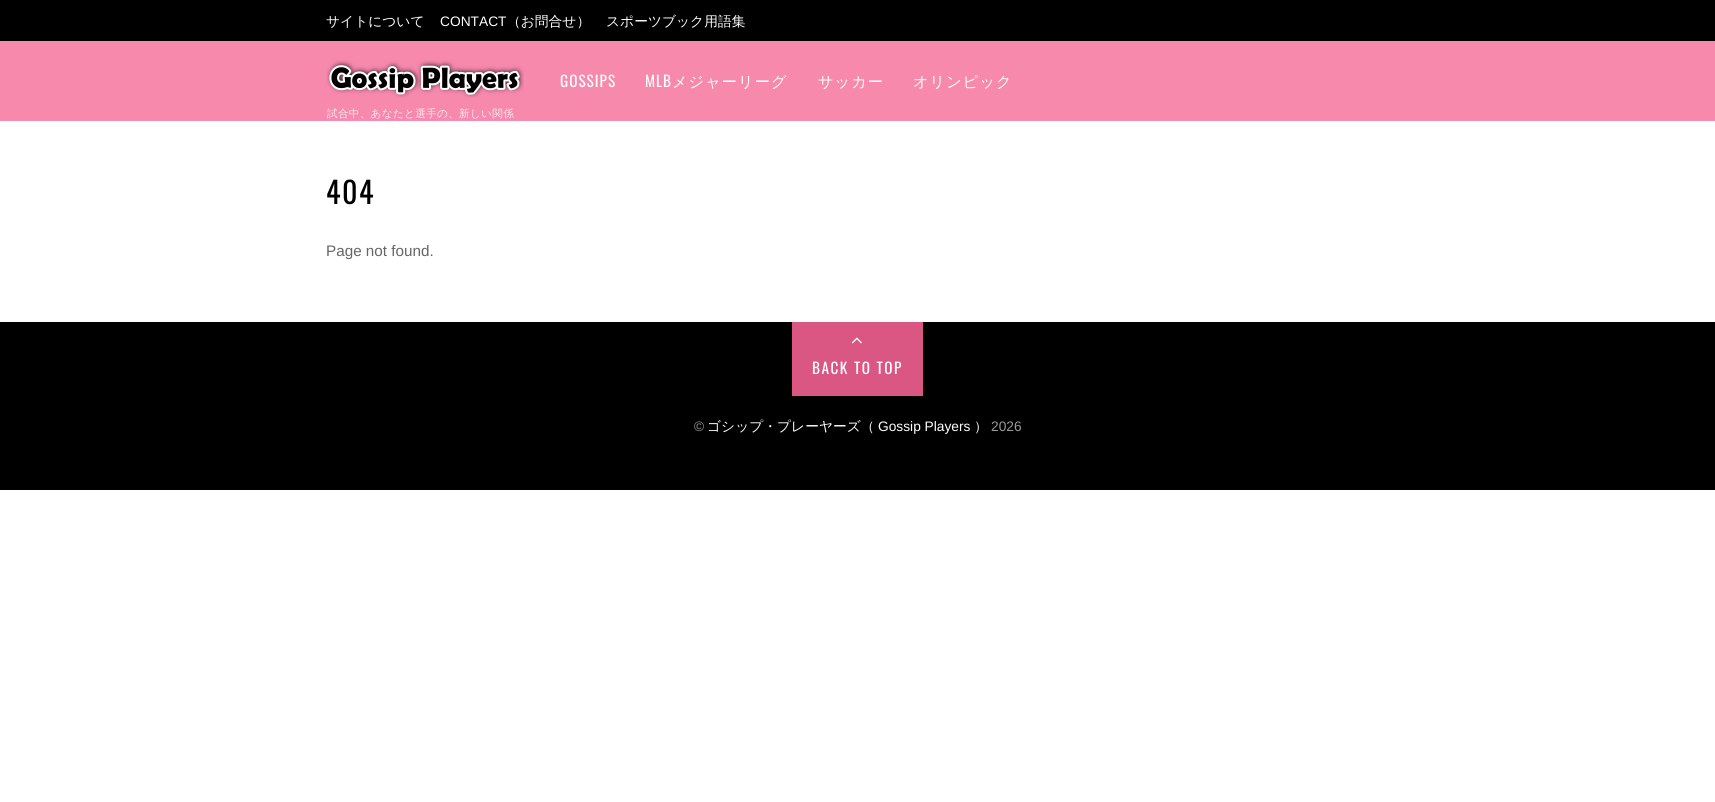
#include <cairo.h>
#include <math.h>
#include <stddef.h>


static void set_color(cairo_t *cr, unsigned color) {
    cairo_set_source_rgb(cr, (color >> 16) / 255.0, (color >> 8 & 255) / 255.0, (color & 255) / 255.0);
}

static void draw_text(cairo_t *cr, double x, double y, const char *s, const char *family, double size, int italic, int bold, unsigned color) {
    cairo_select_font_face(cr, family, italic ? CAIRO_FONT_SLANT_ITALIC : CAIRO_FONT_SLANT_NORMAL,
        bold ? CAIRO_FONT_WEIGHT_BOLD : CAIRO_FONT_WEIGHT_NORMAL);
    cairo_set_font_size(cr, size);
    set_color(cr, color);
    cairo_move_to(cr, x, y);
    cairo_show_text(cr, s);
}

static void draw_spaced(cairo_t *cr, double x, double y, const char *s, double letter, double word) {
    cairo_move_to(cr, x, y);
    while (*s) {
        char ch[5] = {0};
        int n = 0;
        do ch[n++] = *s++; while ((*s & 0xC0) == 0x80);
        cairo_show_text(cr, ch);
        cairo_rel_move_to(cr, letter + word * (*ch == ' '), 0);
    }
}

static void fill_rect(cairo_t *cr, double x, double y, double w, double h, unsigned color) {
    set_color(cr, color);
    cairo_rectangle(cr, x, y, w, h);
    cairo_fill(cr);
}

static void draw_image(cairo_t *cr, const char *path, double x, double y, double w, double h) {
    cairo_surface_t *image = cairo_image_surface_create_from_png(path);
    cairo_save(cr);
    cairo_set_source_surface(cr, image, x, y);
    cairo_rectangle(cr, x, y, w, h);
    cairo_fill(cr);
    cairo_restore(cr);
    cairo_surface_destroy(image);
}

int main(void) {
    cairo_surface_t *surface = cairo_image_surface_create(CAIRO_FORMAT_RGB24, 1715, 802);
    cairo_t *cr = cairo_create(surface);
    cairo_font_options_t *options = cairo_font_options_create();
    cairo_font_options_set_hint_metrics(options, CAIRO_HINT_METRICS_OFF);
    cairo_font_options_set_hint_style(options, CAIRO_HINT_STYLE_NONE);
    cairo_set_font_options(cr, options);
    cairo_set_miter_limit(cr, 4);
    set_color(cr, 0xFFFFFF);
    cairo_paint(cr);
    fill_rect(cr, 0, 41, 1715, 80, 0xF789AD);
    fill_rect(cr, 0, 0, 1715, 41, 0x000000);
    draw_text(cr, 326, 26, "サイトについて", "WenQuanYi Zen Hei Medium", 13.75, 0, 0, 0xFFFFFF);
    draw_text(cr, 440, 26, "CONTACT", "Liberation Sans", 13.75, 0, 0, 0xFFFFFF);
    draw_text(cr, 507, 26, "（お問合せ）", "WenQuanYi Zen Hei Medium", 13.75, 0, 0, 0xFFFFFF);
    draw_text(cr, 606, 26, "スポーツブック用語集", "WenQuanYi Zen Hei Medium", 13.75, 0, 0, 0xFFFFFF);
    cairo_select_font_face(cr, "Oswald", CAIRO_FONT_SLANT_NORMAL, CAIRO_FONT_WEIGHT_NORMAL);
    cairo_set_font_size(cr, 15.25);
    draw_spaced(cr, 560, 87, "GOSSIPS", 1, 0);
    draw_spaced(cr, 645, 87, "MLB", 1, 0);
    cairo_select_font_face(cr, "WenQuanYi Zen Hei Medium", CAIRO_FONT_SLANT_NORMAL, CAIRO_FONT_WEIGHT_NORMAL);
    draw_spaced(cr, 672, 87, "メジャーリーグ", 1, 0);
    draw_spaced(cr, 818, 87, "サッカー", 1, 0);
    draw_spaced(cr, 913, 87, "オリンピック", 1, 0);
    draw_image(cr, "assets/img1.png", 326, 60, 198, 38);
    cairo_set_font_size(cr, 10.6);
    set_color(cr, 0xFDE7EF);
    draw_spaced(cr, 327, 117, "試合中、あなたと選手の、新しい関係", 0.3, 0);
    cairo_select_font_face(cr, "Oswald", CAIRO_FONT_SLANT_NORMAL, CAIRO_FONT_WEIGHT_NORMAL);
    cairo_set_font_size(cr, 30);
    set_color(cr, 0x000000);
    draw_spaced(cr, 326, 204, "404", 1.5, 0);
    draw_text(cr, 326, 256, "Page not found.", "Liberation Sans", 15.25, 0, 0, 0x666666);
    fill_rect(cr, 0, 322, 1715, 168, 0x000000);
    fill_rect(cr, 792, 322, 131, 74, 0xD95782);
    draw_image(cr, "assets/img2.png", 851, 337, 11, 7);
    cairo_select_font_face(cr, "Oswald", CAIRO_FONT_SLANT_NORMAL, CAIRO_FONT_WEIGHT_NORMAL);
    set_color(cr, 0xFFFFFF);
    draw_spaced(cr, 812, 374, "BACK TO TOP", 1.5, 0);
    draw_text(cr, 694, 431, "©", "Liberation Sans", 13.75, 0, 0, 0x999999);
    draw_text(cr, 707, 431, "ゴシップ・プレーヤーズ（", "WenQuanYi Zen Hei Medium", 13.75, 0, 0, 0xFFFFFF);
    draw_text(cr, 878, 431, "Gossip Players", "Liberation Sans", 13.75, 0, 0, 0xFFFFFF);
    draw_text(cr, 974, 431, "）", "WenQuanYi Zen Hei Medium", 13.75, 0, 0, 0xFFFFFF);
    draw_text(cr, 991, 431, "2026", "Liberation Sans", 13.75, 0, 0, 0x999999);
    cairo_surface_write_to_png(surface, "output.png");
    cairo_font_options_destroy(options);
    cairo_destroy(cr);
    cairo_surface_destroy(surface);
    return 0;
}
